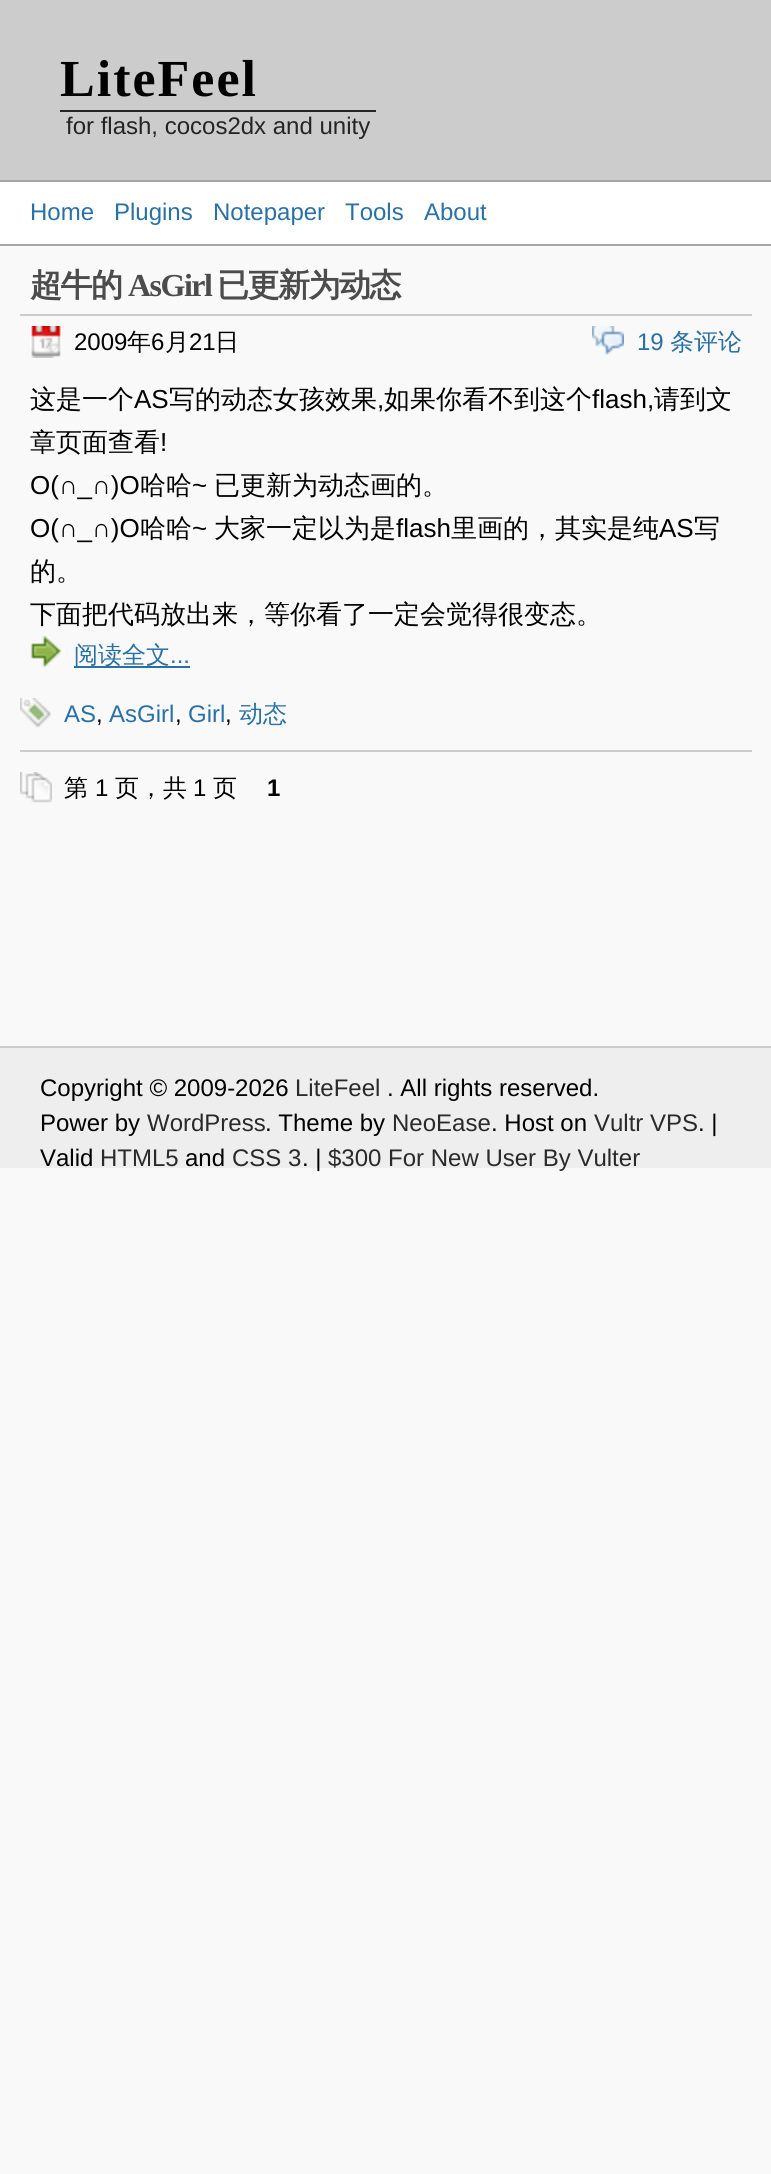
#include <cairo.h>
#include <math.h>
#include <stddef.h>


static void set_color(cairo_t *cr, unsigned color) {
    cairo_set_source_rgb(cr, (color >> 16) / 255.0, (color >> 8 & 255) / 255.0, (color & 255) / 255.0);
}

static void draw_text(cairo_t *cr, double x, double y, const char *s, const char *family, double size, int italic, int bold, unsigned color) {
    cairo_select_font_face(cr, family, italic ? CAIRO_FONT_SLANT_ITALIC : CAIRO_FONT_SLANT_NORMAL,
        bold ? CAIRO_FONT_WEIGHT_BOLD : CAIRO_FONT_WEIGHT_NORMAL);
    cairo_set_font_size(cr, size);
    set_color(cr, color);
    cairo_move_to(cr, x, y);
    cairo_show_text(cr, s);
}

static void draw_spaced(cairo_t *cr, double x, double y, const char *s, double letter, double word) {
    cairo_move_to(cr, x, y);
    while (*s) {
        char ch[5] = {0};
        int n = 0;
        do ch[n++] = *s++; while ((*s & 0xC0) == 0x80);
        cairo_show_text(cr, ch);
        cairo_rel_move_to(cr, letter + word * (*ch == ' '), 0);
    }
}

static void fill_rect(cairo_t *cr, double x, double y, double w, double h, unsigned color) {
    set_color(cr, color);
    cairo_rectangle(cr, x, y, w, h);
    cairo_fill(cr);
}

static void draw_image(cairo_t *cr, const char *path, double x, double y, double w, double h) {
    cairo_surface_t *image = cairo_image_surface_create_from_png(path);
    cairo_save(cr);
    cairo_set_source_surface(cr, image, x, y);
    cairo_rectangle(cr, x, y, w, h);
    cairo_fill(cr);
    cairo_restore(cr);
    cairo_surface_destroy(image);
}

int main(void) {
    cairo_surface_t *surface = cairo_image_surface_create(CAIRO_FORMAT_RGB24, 771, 2174);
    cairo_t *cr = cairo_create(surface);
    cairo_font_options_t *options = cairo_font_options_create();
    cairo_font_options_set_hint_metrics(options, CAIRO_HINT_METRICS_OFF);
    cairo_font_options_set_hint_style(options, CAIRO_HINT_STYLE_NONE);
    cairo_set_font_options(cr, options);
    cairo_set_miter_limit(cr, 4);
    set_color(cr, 0xF9F9F9);
    cairo_paint(cr);
    fill_rect(cr, 0, 0, 771, 180, 0xCCCCCC);
    fill_rect(cr, 0, 180, 771, 2, 0xA6A6A6);
    cairo_select_font_face(cr, "Liberation Serif", CAIRO_FONT_SLANT_NORMAL, CAIRO_FONT_WEIGHT_BOLD);
    cairo_set_font_size(cr, 52);
    set_color(cr, 0x000000);
    draw_spaced(cr, 60, 96, "LiteFeel", 2, 0);
    fill_rect(cr, 60, 110, 316, 2, 0x242424);
    draw_text(cr, 66, 134, "for flash, cocos2dx and unity", "Liberation Sans", 24, 0, 0, 0x242424);
    fill_rect(cr, 0, 182, 771, 62, 0xFFFFFF);
    fill_rect(cr, 0, 244, 771, 2, 0xA6A6A6);
    draw_text(cr, 30, 220, "Home", "Liberation Sans", 24, 0, 0, 0x2970A6);
    draw_text(cr, 114, 220, "Plugins", "Liberation Sans", 24, 0, 0, 0x2970A6);
    draw_text(cr, 213, 220, "Notepaper", "Liberation Sans", 24, 0, 0, 0x2970A6);
    draw_text(cr, 345, 220, "Tools", "Liberation Sans", 24, 0, 0, 0x2970A6);
    draw_text(cr, 424, 220, "About", "Liberation Sans", 24, 0, 0, 0x2970A6);
    fill_rect(cr, 20, 314, 732, 2, 0xCCCCCC);
    cairo_select_font_face(cr, "WenQuanYi Zen Hei", CAIRO_FONT_SLANT_NORMAL, CAIRO_FONT_WEIGHT_BOLD);
    cairo_set_font_size(cr, 32);
    set_color(cr, 0x4C4C4C);
    draw_spaced(cr, 30, 296, "超牛的", -1.5, 0);
    cairo_select_font_face(cr, "Liberation Serif", CAIRO_FONT_SLANT_NORMAL, CAIRO_FONT_WEIGHT_BOLD);
    draw_spaced(cr, 128, 296, "AsGirl", -1.5, 0);
    cairo_select_font_face(cr, "WenQuanYi Zen Hei", CAIRO_FONT_SLANT_NORMAL, CAIRO_FONT_WEIGHT_BOLD);
    draw_spaced(cr, 217, 296, "已更新为动态", -1.5, 0);
    draw_image(cr, "assets/img1.png", 30, 326, 32, 32);
    draw_text(cr, 74, 350, "2009", "Liberation Sans", 24, 0, 0, 0x000000);
    draw_text(cr, 127, 350, "年", "WenQuanYi Zen Hei Medium", 24, 0, 0, 0x000000);
    draw_text(cr, 151, 350, "6", "Liberation Sans", 24, 0, 0, 0x000000);
    draw_text(cr, 165, 350, "月", "WenQuanYi Zen Hei Medium", 24, 0, 0, 0x000000);
    draw_text(cr, 189, 350, "21", "Liberation Sans", 24, 0, 0, 0x000000);
    draw_text(cr, 215, 350, "日", "WenQuanYi Zen Hei Medium", 24, 0, 0, 0x000000);
    draw_image(cr, "assets/img2.png", 592, 326, 32, 29);
    draw_text(cr, 637, 350, "19", "Liberation Sans", 24, 0, 0, 0x2970A6);
    draw_text(cr, 670, 350, "条评论", "WenQuanYi Zen Hei Medium", 24, 0, 0, 0x2970A6);
    draw_text(cr, 30, 408, "这是一个", "WenQuanYi Zen Hei Medium", 26, 0, 0, 0x000000);
    draw_text(cr, 134, 408, "AS", "Liberation Sans", 26, 0, 0, 0x000000);
    draw_text(cr, 169, 408, "写的动态女孩效果", "WenQuanYi Zen Hei Medium", 26, 0, 0, 0x000000);
    draw_text(cr, 377, 408, ",", "Liberation Sans", 26, 0, 0, 0x000000);
    draw_text(cr, 384, 408, "如果你看不到这个", "WenQuanYi Zen Hei Medium", 26, 0, 0, 0x000000);
    draw_text(cr, 592, 408, "flash,", "Liberation Sans", 26, 0, 0, 0x000000);
    draw_text(cr, 654, 408, "请到文", "WenQuanYi Zen Hei Medium", 26, 0, 0, 0x000000);
    draw_text(cr, 30, 451, "章页面查看", "WenQuanYi Zen Hei Medium", 26, 0, 0, 0x000000);
    draw_text(cr, 160, 451, "!", "Liberation Sans", 26, 0, 0, 0x000000);
    draw_text(cr, 30, 494, "O(∩_∩)O", "Liberation Sans", 26, 0, 0, 0x000000);
    draw_text(cr, 140, 494, "哈哈", "WenQuanYi Zen Hei Medium", 26, 0, 0, 0x000000);
    draw_text(cr, 192, 494, "~", "Liberation Sans", 26, 0, 0, 0x000000);
    draw_text(cr, 214, 494, "已更新为动态画的。", "WenQuanYi Zen Hei Medium", 26, 0, 0, 0x000000);
    draw_text(cr, 30, 537, "O(∩_∩)O", "Liberation Sans", 26, 0, 0, 0x000000);
    draw_text(cr, 140, 537, "哈哈", "WenQuanYi Zen Hei Medium", 26, 0, 0, 0x000000);
    draw_text(cr, 192, 537, "~", "Liberation Sans", 26, 0, 0, 0x000000);
    draw_text(cr, 214, 537, "大家一定以为是", "WenQuanYi Zen Hei Medium", 26, 0, 0, 0x000000);
    draw_text(cr, 396, 537, "flash", "Liberation Sans", 26, 0, 0, 0x000000);
    draw_text(cr, 451, 537, "里画的，其实是纯", "WenQuanYi Zen Hei Medium", 26, 0, 0, 0x000000);
    draw_text(cr, 659, 537, "AS", "Liberation Sans", 26, 0, 0, 0x000000);
    draw_text(cr, 694, 537, "写", "WenQuanYi Zen Hei Medium", 26, 0, 0, 0x000000);
    draw_text(cr, 30, 580, "的。", "WenQuanYi Zen Hei Medium", 26, 0, 0, 0x000000);
    draw_text(cr, 30, 623, "下面把代码放出来，等你看了一定会觉得很变态。", "WenQuanYi Zen Hei Medium", 26, 0, 0, 0x000000);
    draw_image(cr, "assets/img3.png", 30, 636, 32, 32);
    fill_rect(cr, 74, 666, 116, 2, 0x2970A6);
    draw_text(cr, 74, 663, "阅读全文", "WenQuanYi Zen Hei Medium", 24, 0, 0, 0x2970A6);
    draw_text(cr, 170, 663, "...", "Liberation Sans", 24, 0, 0, 0x2970A6);
    draw_image(cr, "assets/img4.png", 20, 698, 31, 30);
    draw_text(cr, 64, 722, "AS", "Liberation Sans", 24, 0, 0, 0x2970A6);
    draw_text(cr, 96, 722, ",", "Liberation Sans", 24, 0, 0, 0x000000);
    draw_text(cr, 109, 722, "AsGirl", "Liberation Sans", 24, 0, 0, 0x2970A6);
    draw_text(cr, 175, 722, ",", "Liberation Sans", 24, 0, 0, 0x000000);
    draw_text(cr, 188, 722, "Girl", "Liberation Sans", 24, 0, 0, 0x2970A6);
    draw_text(cr, 225, 722, ",", "Liberation Sans", 24, 0, 0, 0x000000);
    draw_text(cr, 239, 722, "动态", "WenQuanYi Zen Hei Medium", 24, 0, 0, 0x2970A6);
    fill_rect(cr, 20, 750, 732, 2, 0xCCCCCC);
    draw_image(cr, "assets/img5.png", 20, 772, 32, 31);
    draw_text(cr, 64, 796, "第", "WenQuanYi Zen Hei Medium", 24, 0, 0, 0x000000);
    draw_text(cr, 95, 796, "1", "Liberation Sans", 24, 0, 0, 0x000000);
    draw_text(cr, 115, 796, "页，共", "WenQuanYi Zen Hei Medium", 24, 0, 0, 0x000000);
    draw_text(cr, 193, 796, "1", "Liberation Sans", 24, 0, 0, 0x000000);
    draw_text(cr, 213, 796, "页", "WenQuanYi Zen Hei Medium", 24, 0, 0, 0x000000);
    draw_text(cr, 267, 796, "1", "Liberation Sans", 24, 0, 1, 0x000000);
    fill_rect(cr, 0, 1048, 771, 120, 0xEEEEEE);
    fill_rect(cr, 0, 1046, 771, 2, 0xCCCCCC);
    draw_text(cr, 40, 1096, "Copyright © 2009-2026", "Liberation Sans", 24, 0, 0, 0x000000);
    draw_text(cr, 295, 1096, "LiteFeel", "Liberation Sans", 24, 0, 0, 0x2A2A2A);
    draw_text(cr, 387, 1096, ". All rights reserved.", "Liberation Sans", 24, 0, 0, 0x000000);
    draw_text(cr, 40, 1131, "Power by", "Liberation Sans", 24, 0, 0, 0x000000);
    draw_text(cr, 147, 1131, "WordPress", "Liberation Sans", 24, 0, 0, 0x2A2A2A);
    draw_text(cr, 265, 1131, ". Theme by", "Liberation Sans", 24, 0, 0, 0x000000);
    draw_text(cr, 392, 1131, "NeoEase", "Liberation Sans", 24, 0, 0, 0x2A2A2A);
    draw_text(cr, 491, 1131, ". Host on", "Liberation Sans", 24, 0, 0, 0x000000);
    draw_text(cr, 594, 1131, "Vultr VPS", "Liberation Sans", 24, 0, 0, 0x2A2A2A);
    draw_text(cr, 698, 1131, ". |", "Liberation Sans", 24, 0, 0, 0x000000);
    draw_text(cr, 40, 1166, "Valid", "Liberation Sans", 24, 0, 0, 0x000000);
    draw_text(cr, 100, 1166, "HTML5", "Liberation Sans", 24, 0, 0, 0x2A2A2A);
    draw_text(cr, 185, 1166, "and", "Liberation Sans", 24, 0, 0, 0x000000);
    draw_text(cr, 232, 1166, "CSS 3", "Liberation Sans", 24, 0, 0, 0x2A2A2A);
    draw_text(cr, 302, 1166, ". |", "Liberation Sans", 24, 0, 0, 0x000000);
    draw_text(cr, 328, 1166, "$300 For New User By Vulter", "Liberation Sans", 24, 0, 0, 0x2A2A2A);
    cairo_surface_write_to_png(surface, "output.png");
    cairo_font_options_destroy(options);
    cairo_destroy(cr);
    cairo_surface_destroy(surface);
    return 0;
}
